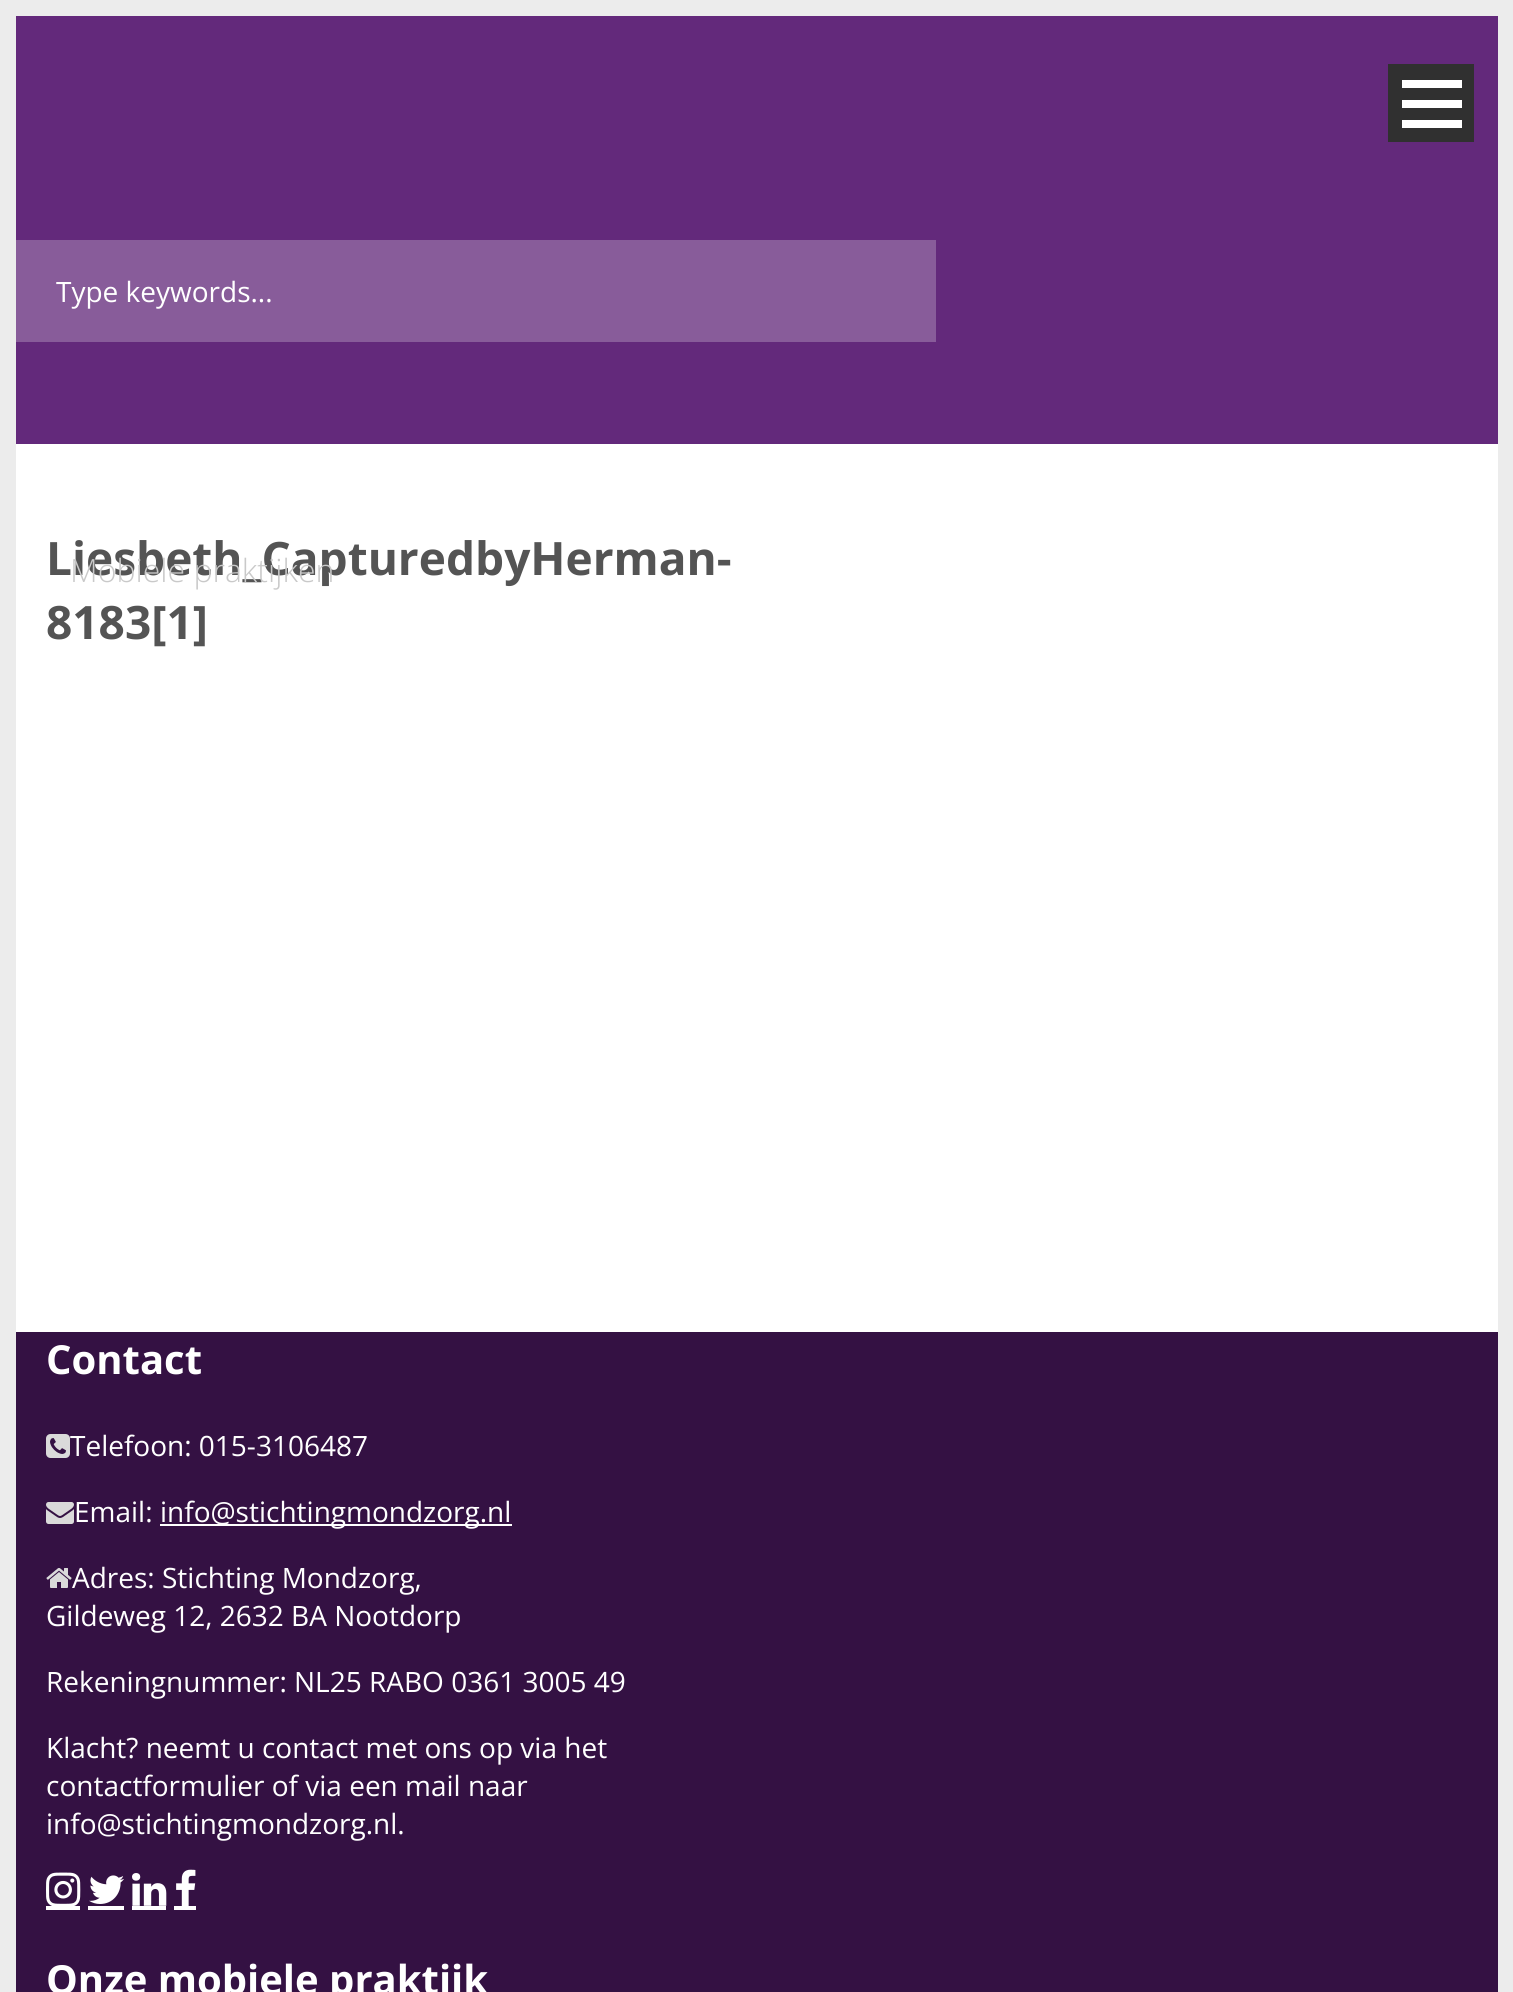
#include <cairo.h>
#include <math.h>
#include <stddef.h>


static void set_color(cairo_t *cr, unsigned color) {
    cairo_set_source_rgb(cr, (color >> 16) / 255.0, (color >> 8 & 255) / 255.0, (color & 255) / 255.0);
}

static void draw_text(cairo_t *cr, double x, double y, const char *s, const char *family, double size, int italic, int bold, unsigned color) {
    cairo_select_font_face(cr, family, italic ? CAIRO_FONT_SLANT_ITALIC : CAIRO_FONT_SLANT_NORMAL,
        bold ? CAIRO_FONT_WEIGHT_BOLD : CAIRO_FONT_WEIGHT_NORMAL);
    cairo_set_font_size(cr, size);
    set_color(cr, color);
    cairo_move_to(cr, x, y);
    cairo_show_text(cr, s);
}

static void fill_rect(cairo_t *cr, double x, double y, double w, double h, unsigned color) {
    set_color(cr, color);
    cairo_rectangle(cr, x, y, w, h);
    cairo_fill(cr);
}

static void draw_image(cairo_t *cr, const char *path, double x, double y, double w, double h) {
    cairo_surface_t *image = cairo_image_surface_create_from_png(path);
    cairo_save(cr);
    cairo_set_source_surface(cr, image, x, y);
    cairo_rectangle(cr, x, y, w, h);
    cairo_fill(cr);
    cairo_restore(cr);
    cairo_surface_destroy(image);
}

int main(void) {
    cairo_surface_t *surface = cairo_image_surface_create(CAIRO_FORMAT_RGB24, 1513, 1992);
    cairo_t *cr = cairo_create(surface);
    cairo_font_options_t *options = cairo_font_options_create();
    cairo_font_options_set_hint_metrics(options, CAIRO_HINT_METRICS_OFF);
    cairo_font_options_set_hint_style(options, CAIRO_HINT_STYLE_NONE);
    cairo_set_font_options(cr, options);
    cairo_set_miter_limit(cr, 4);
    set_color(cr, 0xECECEC);
    cairo_paint(cr);
    fill_rect(cr, 16, 444, 1482, 888, 0xFFFFFF);
    fill_rect(cr, 16, 16, 1482, 428, 0x63297B);
    fill_rect(cr, 16, 240, 920, 102, 0x885C9A);
    draw_text(cr, 56, 302, "Type keywords...", "Open Sans", 28, 0, 0, 0xFFFFFF);
    fill_rect(cr, 1388, 64, 86, 78, 0x303030);
    fill_rect(cr, 1402, 120, 60, 8, 0xFFFFFF);
    fill_rect(cr, 1402, 100, 60, 8, 0xFFFFFF);
    fill_rect(cr, 1402, 80, 60, 8, 0xFFFFFF);
    draw_text(cr, 46, 575, "Liesbeth_CapturedbyHerman-", "Open Sans", 46, 0, 1, 0x545454);
    draw_text(cr, 70, 582, "Mobiele praktijken", "Open Sans Light", 32, 0, 0, 0xC9C9C9);
    draw_text(cr, 46, 639, "8183[1]", "Open Sans", 46, 0, 1, 0x545454);
    fill_rect(cr, 16, 1332, 1482, 660, 0x341143);
    draw_text(cr, 46, 1374, "Contact", "Open Sans", 40, 0, 1, 0xFFFFFF);
    draw_image(cr, "assets/img1.png", 46, 1434, 24, 24);
    draw_text(cr, 70, 1456, "Telefoon: 015-3106487", "Open Sans", 28, 0, 0, 0xFFFFFF);
    draw_image(cr, "assets/img2.png", 46, 1502, 28, 22);
    draw_text(cr, 74, 1522, "Email:", "Open Sans", 28, 0, 0, 0xFFFFFF);
    fill_rect(cr, 160, 1524, 352, 2, 0xFFFFFF);
    draw_text(cr, 160, 1522, "info@stichtingmondzorg.nl", "Open Sans", 28, 0, 0, 0xFFFFFF);
    draw_image(cr, "assets/img3.png", 46, 1568, 26, 20);
    draw_text(cr, 72, 1588, "Adres: Stichting Mondzorg,", "Open Sans", 28, 0, 0, 0xFFFFFF);
    draw_text(cr, 46, 1626, "Gildeweg 12, 2632 BA Nootdorp", "Open Sans", 28, 0, 0, 0xFFFFFF);
    draw_text(cr, 46, 1692, "Rekeningnummer: NL25 RABO 0361 3005 49", "Open Sans", 28, 0, 0, 0xFFFFFF);
    draw_text(cr, 46, 1758, "Klacht? neemt u contact met ons op via het", "Open Sans", 28, 0, 0, 0xFFFFFF);
    draw_text(cr, 46, 1796, "contactformulier of via een mail naar", "Open Sans", 28, 0, 0, 0xFFFFFF);
    draw_text(cr, 46, 1834, "info@stichtingmondzorg.nl.", "Open Sans", 28, 0, 0, 0xFFFFFF);
    fill_rect(cr, 46, 1906, 34, 4, 0xFFFFFF);
    draw_image(cr, "assets/img4.png", 46, 1872, 35, 34);
    fill_rect(cr, 88, 1906, 36, 4, 0xFFFFFF);
    draw_image(cr, "assets/img5.png", 89, 1875, 35, 29);
    fill_rect(cr, 132, 1906, 34, 4, 0xFFFFFF);
    draw_image(cr, "assets/img6.png", 132, 1873, 35, 33);
    fill_rect(cr, 174, 1906, 22, 4, 0xFFFFFF);
    draw_image(cr, "assets/img7.png", 176, 1869, 20, 37);
    draw_text(cr, 46, 1994, "Onze mobiele praktijk", "Open Sans", 40, 0, 1, 0xFFFFFF);
    cairo_surface_write_to_png(surface, "output.png");
    cairo_font_options_destroy(options);
    cairo_destroy(cr);
    cairo_surface_destroy(surface);
    return 0;
}
